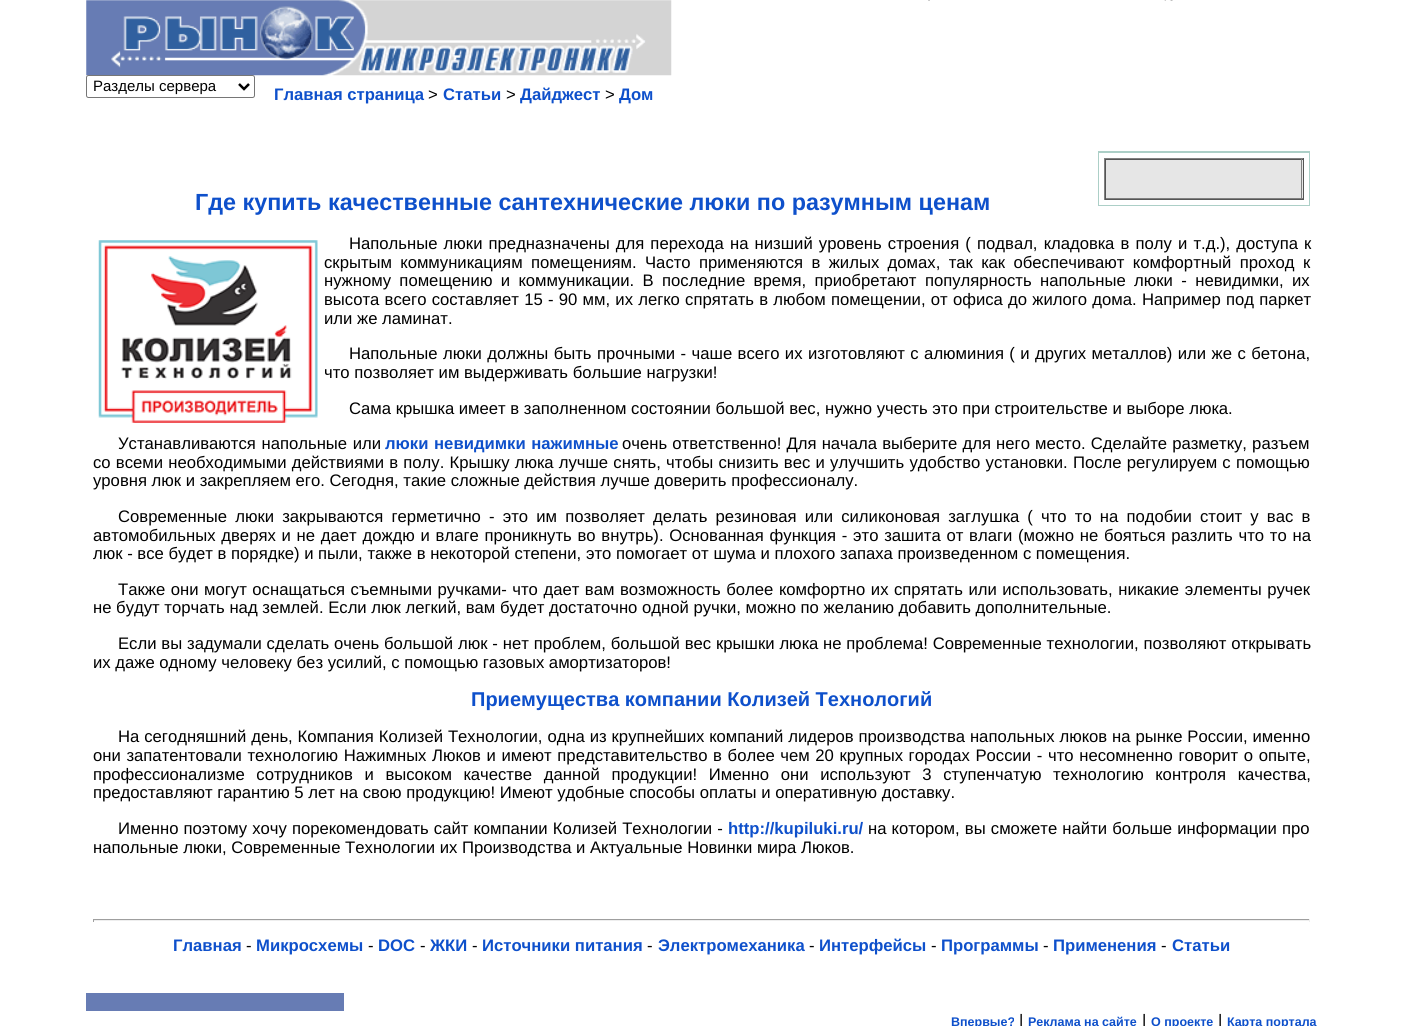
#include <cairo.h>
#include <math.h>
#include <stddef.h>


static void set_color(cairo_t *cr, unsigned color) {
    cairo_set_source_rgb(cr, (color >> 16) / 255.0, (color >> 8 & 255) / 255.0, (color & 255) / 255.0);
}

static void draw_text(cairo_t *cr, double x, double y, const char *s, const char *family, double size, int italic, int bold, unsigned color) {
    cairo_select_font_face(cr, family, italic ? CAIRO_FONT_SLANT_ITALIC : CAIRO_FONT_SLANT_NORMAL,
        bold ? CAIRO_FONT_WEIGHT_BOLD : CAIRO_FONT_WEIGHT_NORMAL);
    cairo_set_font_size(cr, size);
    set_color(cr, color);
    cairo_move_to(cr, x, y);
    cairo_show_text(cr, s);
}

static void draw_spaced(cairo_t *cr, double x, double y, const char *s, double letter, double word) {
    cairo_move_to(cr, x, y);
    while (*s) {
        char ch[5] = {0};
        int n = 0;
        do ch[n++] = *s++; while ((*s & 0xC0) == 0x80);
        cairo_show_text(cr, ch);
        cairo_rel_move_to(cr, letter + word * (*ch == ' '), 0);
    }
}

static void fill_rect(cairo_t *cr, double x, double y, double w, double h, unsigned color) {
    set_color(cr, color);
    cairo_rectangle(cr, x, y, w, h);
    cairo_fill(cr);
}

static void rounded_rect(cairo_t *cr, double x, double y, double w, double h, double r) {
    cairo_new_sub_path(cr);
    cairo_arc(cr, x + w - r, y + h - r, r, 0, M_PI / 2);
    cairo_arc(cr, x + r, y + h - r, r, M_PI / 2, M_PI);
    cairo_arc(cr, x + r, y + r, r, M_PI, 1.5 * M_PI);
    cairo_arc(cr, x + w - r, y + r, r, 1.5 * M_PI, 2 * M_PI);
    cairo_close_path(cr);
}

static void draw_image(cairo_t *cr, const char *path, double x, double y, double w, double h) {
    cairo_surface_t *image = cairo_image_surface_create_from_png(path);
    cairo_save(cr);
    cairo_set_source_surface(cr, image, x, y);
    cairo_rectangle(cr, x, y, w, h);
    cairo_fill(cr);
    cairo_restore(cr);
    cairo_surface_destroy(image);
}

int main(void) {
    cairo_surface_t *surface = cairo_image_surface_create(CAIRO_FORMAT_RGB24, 1402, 1026);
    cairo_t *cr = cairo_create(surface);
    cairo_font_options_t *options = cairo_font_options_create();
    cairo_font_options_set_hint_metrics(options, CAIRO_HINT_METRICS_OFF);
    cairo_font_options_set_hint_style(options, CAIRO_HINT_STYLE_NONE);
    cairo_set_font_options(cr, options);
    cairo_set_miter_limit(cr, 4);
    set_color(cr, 0xFFFFFF);
    cairo_paint(cr);
    draw_image(cr, "assets/img1.png", 86, 0, 586, 76);
    draw_image(cr, "assets/img2.png", 928, 0, 245, 1);
    set_color(cr, 0xFFFFFF);
    rounded_rect(cr, 86.5, 75.5, 168, 22, 2);
    cairo_fill_preserve(cr);
    set_color(cr, 0x767676);
    cairo_set_line_width(cr, 1);
    cairo_stroke(cr);
    cairo_new_path(cr);
    cairo_move_to(cr, 239, 84);
    cairo_line_to(cr, 244, 89);
    cairo_line_to(cr, 249, 84);
    set_color(cr, 0x000000);
    cairo_set_line_width(cr, 2.5);
    cairo_stroke(cr);
    draw_text(cr, 93, 91, "Разделы сервера", "Liberation Sans", 15, 0, 0, 0x000000);
    draw_text(cr, 274, 100, "Главная страница", "Liberation Sans", 16.67, 0, 1, 0x0E50CB);
    draw_text(cr, 428, 100, ">", "Liberation Sans", 16.67, 0, 0, 0x000000);
    draw_text(cr, 443, 100, "Статьи", "Liberation Sans", 16.67, 0, 1, 0x0E50CB);
    draw_text(cr, 506, 100, ">", "Liberation Sans", 16.67, 0, 0, 0x000000);
    draw_text(cr, 520, 100, "Дайджест", "Liberation Sans", 16.67, 0, 1, 0x0E50CB);
    draw_text(cr, 605, 100, ">", "Liberation Sans", 16.67, 0, 0, 0x000000);
    draw_text(cr, 619, 100, "Дом", "Liberation Sans", 16.67, 0, 1, 0x0E50CB);
    fill_rect(cr, 1098, 151, 212, 55, 0xACCFC7);
    fill_rect(cr, 1099, 153, 210, 52, 0xFFFFFF);
    fill_rect(cr, 1106, 160, 197, 38, 0xE6E6E6);
    fill_rect(cr, 1104, 158, 200, 1, 0x808080);
    fill_rect(cr, 1303, 158, 1, 42, 0x555555);
    fill_rect(cr, 1104, 199, 200, 1, 0x555555);
    fill_rect(cr, 1104, 158, 1, 42, 0x808080);
    fill_rect(cr, 1105, 159, 198, 1, 0x555555);
    fill_rect(cr, 1301, 159, 1, 40, 0x808080);
    fill_rect(cr, 1105, 198, 198, 1, 0x808080);
    fill_rect(cr, 1105, 159, 1, 40, 0x555555);
    draw_text(cr, 195, 210, "Где купить качественные сантехнические люки по разумным ценам", "Liberation Sans", 23.35, 0, 1, 0x0E50CB);
    draw_image(cr, "assets/img3.png", 98, 240, 220, 183);
    cairo_select_font_face(cr, "Liberation Sans", CAIRO_FONT_SLANT_NORMAL, CAIRO_FONT_WEIGHT_NORMAL);
    cairo_set_font_size(cr, 16.67);
    set_color(cr, 0x000000);
    draw_spaced(cr, 349, 249, "Напольные люки предназначены для перехода на низший уровень строения ( подвал, кладовка в полу и т.д.), доступа к", 0, 1.5);
    draw_spaced(cr, 324, 268, "скрытым коммуникациям помещениям. Часто применяются в жилых домах, так как обеспечивают комфортный проход к", 0, 3.75);
    draw_spaced(cr, 324, 286, "нужному помещению и коммуникации. В последние время, приобретают популярность напольные люки - невидимки, их", 0, 3.75);
    draw_spaced(cr, 324, 305, "высота всего составляет 15 - 90 мм, их легко спрятать в любом помещении, от офиса до жилого дома. Например под паркет", 0, 0.6);
    draw_text(cr, 324, 324, "или же ламинат.", "Liberation Sans", 16.67, 0, 0, 0x000000);
    draw_spaced(cr, 349, 359, "Напольные люки должны быть прочными - чаше всего их изготовляют с алюминия ( и других металлов) или же с бетона,", 0, 0.8);
    draw_text(cr, 324, 378, "что позволяет им выдерживать большие нагрузки!", "Liberation Sans", 16.67, 0, 0, 0x000000);
    draw_text(cr, 349, 414, "Сама крышка имеет в заполненном состоянии большой вес, нужно учесть это при строительстве и выборе люка.", "Liberation Sans", 16.67, 0, 0, 0x000000);
    draw_spaced(cr, 118, 449, "Устанавливаются напольные или", 0, 1);
    cairo_select_font_face(cr, "Liberation Sans", CAIRO_FONT_SLANT_NORMAL, CAIRO_FONT_WEIGHT_BOLD);
    set_color(cr, 0x0E50CB);
    draw_spaced(cr, 385, 449, "люки невидимки нажимные", 0, 1);
    cairo_select_font_face(cr, "Liberation Sans", CAIRO_FONT_SLANT_NORMAL, CAIRO_FONT_WEIGHT_NORMAL);
    set_color(cr, 0x000000);
    draw_spaced(cr, 622, 449, "очень ответственно! Для начала выберите для него место. Сделайте разметку, разъем", 0, 0.5);
    draw_spaced(cr, 93, 468, "со всеми необходимыми действиями в полу. Крышку люка лучше снять, чтобы снизить вес и улучшить удобство установки. После регулируем с помощью", 0, 0.6);
    draw_text(cr, 93, 486, "уровня люк и закрепляем его. Сегодня, такие сложные действия лучше доверить профессионалу.", "Liberation Sans", 16.67, 0, 0, 0x000000);
    draw_spaced(cr, 118, 522, "Современные люки закрываются герметично - это им позволяет делать резиновая или силиконовая заглушка ( что то на подобии стоит у вас в", 0, 3.5);
    draw_spaced(cr, 93, 541, "автомобильных дверях и не дает дождю и влаге проникнуть во внутрь). Основанная функция - это зашита от влаги (можно не бояться разлить что то на", 0, 1.1);
    draw_text(cr, 93, 559, "люк - все будет в порядке) и пыли, также в некоторой степени, это помогает от шума и плохого запаха произведенном с помещения.", "Liberation Sans", 16.67, 0, 0, 0x000000);
    draw_spaced(cr, 118, 595, "Также они могут оснащаться съемными ручками- что дает вам возможность более комфортно их спрятать или использовать, никакие элементы ручек", 0, 0.9);
    draw_text(cr, 93, 613, "не будут торчать над землей. Если люк легкий, вам будет достаточно одной ручки, можно по желанию добавить дополнительные.", "Liberation Sans", 16.67, 0, 0, 0x000000);
    draw_spaced(cr, 118, 649, "Если вы задумали сделать очень большой люк - нет проблем, большой вес крышки люка не проблема! Современные технологии, позволяют открывать", 0, 0.2);
    draw_text(cr, 93, 668, "их даже одному человеку без усилий, с помощью газовых амортизаторов!", "Liberation Sans", 16.67, 0, 0, 0x000000);
    draw_text(cr, 471, 706, "Приемущества компании Колизей Технологий", "Liberation Sans", 20, 0, 1, 0x0E50CB);
    cairo_select_font_face(cr, "Liberation Sans", CAIRO_FONT_SLANT_NORMAL, CAIRO_FONT_WEIGHT_NORMAL);
    cairo_set_font_size(cr, 16.67);
    set_color(cr, 0x000000);
    draw_spaced(cr, 118, 742, "На сегодняшний день, Компания Колизей Технологии, одна из крупнейших компаний лидеров производства напольных люков на рынке России, именно", 0, 0.25);
    draw_spaced(cr, 93, 761, "они запатентовали технологию Нажимных Люков и имеют представительство в более чем 20 крупных городах России - что несомненно говорит о опыте,", 0, 1);
    draw_spaced(cr, 93, 780, "профессионализме сотрудников и высоком качестве данной продукции! Именно они используют 3 ступенчатую технологию контроля качества,", 0, 7);
    draw_text(cr, 93, 798, "предоставляют гарантию 5 лет на свою продукцию! Имеют удобные способы оплаты и оперативную доставку.", "Liberation Sans", 16.67, 0, 0, 0x000000);
    draw_spaced(cr, 118, 834, "Именно поэтому хочу порекомендовать сайт компании Колизей Технологии -", 0, 0.5);
    draw_text(cr, 728, 834, "http://kupiluki.ru/", "Liberation Sans", 16.67, 0, 1, 0x0E50CB);
    cairo_select_font_face(cr, "Liberation Sans", CAIRO_FONT_SLANT_NORMAL, CAIRO_FONT_WEIGHT_NORMAL);
    set_color(cr, 0x000000);
    draw_spaced(cr, 868, 834, "на котором, вы сможете найти больше информации про", 0, 0.5);
    draw_text(cr, 93, 853, "напольные люки, Современные Технологии их Производства и Актуальные Новинки мира Люков.", "Liberation Sans", 16.67, 0, 0, 0x000000);
    fill_rect(cr, 93, 919, 1217, 1, 0x9F9F9F);
    fill_rect(cr, 1309, 919, 1, 3, 0xEEEEEE);
    fill_rect(cr, 93, 920, 1217, 1, 0xEEEEEE);
    fill_rect(cr, 93, 919, 1, 3, 0x9F9F9F);
    draw_text(cr, 173, 951, "Главная", "Liberation Sans", 16.67, 0, 1, 0x0E50CB);
    draw_text(cr, 246, 951, "-", "Liberation Sans", 16.67, 0, 0, 0x000000);
    draw_text(cr, 256, 951, "Микросхемы", "Liberation Sans", 16.67, 0, 1, 0x0E50CB);
    draw_text(cr, 368, 951, "-", "Liberation Sans", 16.67, 0, 0, 0x000000);
    draw_text(cr, 378, 951, "DOC", "Liberation Sans", 16.67, 0, 1, 0x0E50CB);
    draw_text(cr, 420, 951, "-", "Liberation Sans", 16.67, 0, 0, 0x000000);
    draw_text(cr, 430, 951, "ЖКИ", "Liberation Sans", 16.67, 0, 1, 0x0E50CB);
    draw_text(cr, 472, 951, "-", "Liberation Sans", 16.67, 0, 0, 0x000000);
    draw_text(cr, 482, 951, "Источники питания", "Liberation Sans", 16.67, 0, 1, 0x0E50CB);
    draw_text(cr, 647, 951, "-", "Liberation Sans", 16.67, 0, 0, 0x000000);
    draw_text(cr, 658, 951, "Электромеханика", "Liberation Sans", 16.67, 0, 1, 0x0E50CB);
    draw_text(cr, 809, 951, "-", "Liberation Sans", 16.67, 0, 0, 0x000000);
    draw_text(cr, 819, 951, "Интерфейсы", "Liberation Sans", 16.67, 0, 1, 0x0E50CB);
    draw_text(cr, 931, 951, "-", "Liberation Sans", 16.67, 0, 0, 0x000000);
    draw_text(cr, 941, 951, "Программы", "Liberation Sans", 16.67, 0, 1, 0x0E50CB);
    draw_text(cr, 1043, 951, "-", "Liberation Sans", 16.67, 0, 0, 0x000000);
    draw_text(cr, 1053, 951, "Применения", "Liberation Sans", 16.67, 0, 1, 0x0E50CB);
    draw_text(cr, 1161, 951, "-", "Liberation Sans", 16.67, 0, 0, 0x000000);
    draw_text(cr, 1172, 951, "Статьи", "Liberation Sans", 16.67, 0, 1, 0x0E50CB);
    fill_rect(cr, 86, 993, 258, 18, 0x677CB4);
    draw_text(cr, 951, 1026, "Впервые?", "Liberation Sans", 12.5, 0, 1, 0x0E50CB);
    draw_text(cr, 1019, 1026, "|", "Liberation Sans", 16.67, 0, 0, 0x000000);
    draw_text(cr, 1028, 1026, "Реклама на сайте", "Liberation Sans", 12.5, 0, 1, 0x0E50CB);
    draw_text(cr, 1142, 1026, "|", "Liberation Sans", 16.67, 0, 0, 0x000000);
    draw_text(cr, 1151, 1026, "О проекте", "Liberation Sans", 12.5, 0, 1, 0x0E50CB);
    draw_text(cr, 1218, 1026, "|", "Liberation Sans", 16.67, 0, 0, 0x000000);
    draw_text(cr, 1227, 1026, "Карта портала", "Liberation Sans", 12.5, 0, 1, 0x0E50CB);
    cairo_surface_write_to_png(surface, "output.png");
    cairo_font_options_destroy(options);
    cairo_destroy(cr);
    cairo_surface_destroy(surface);
    return 0;
}
